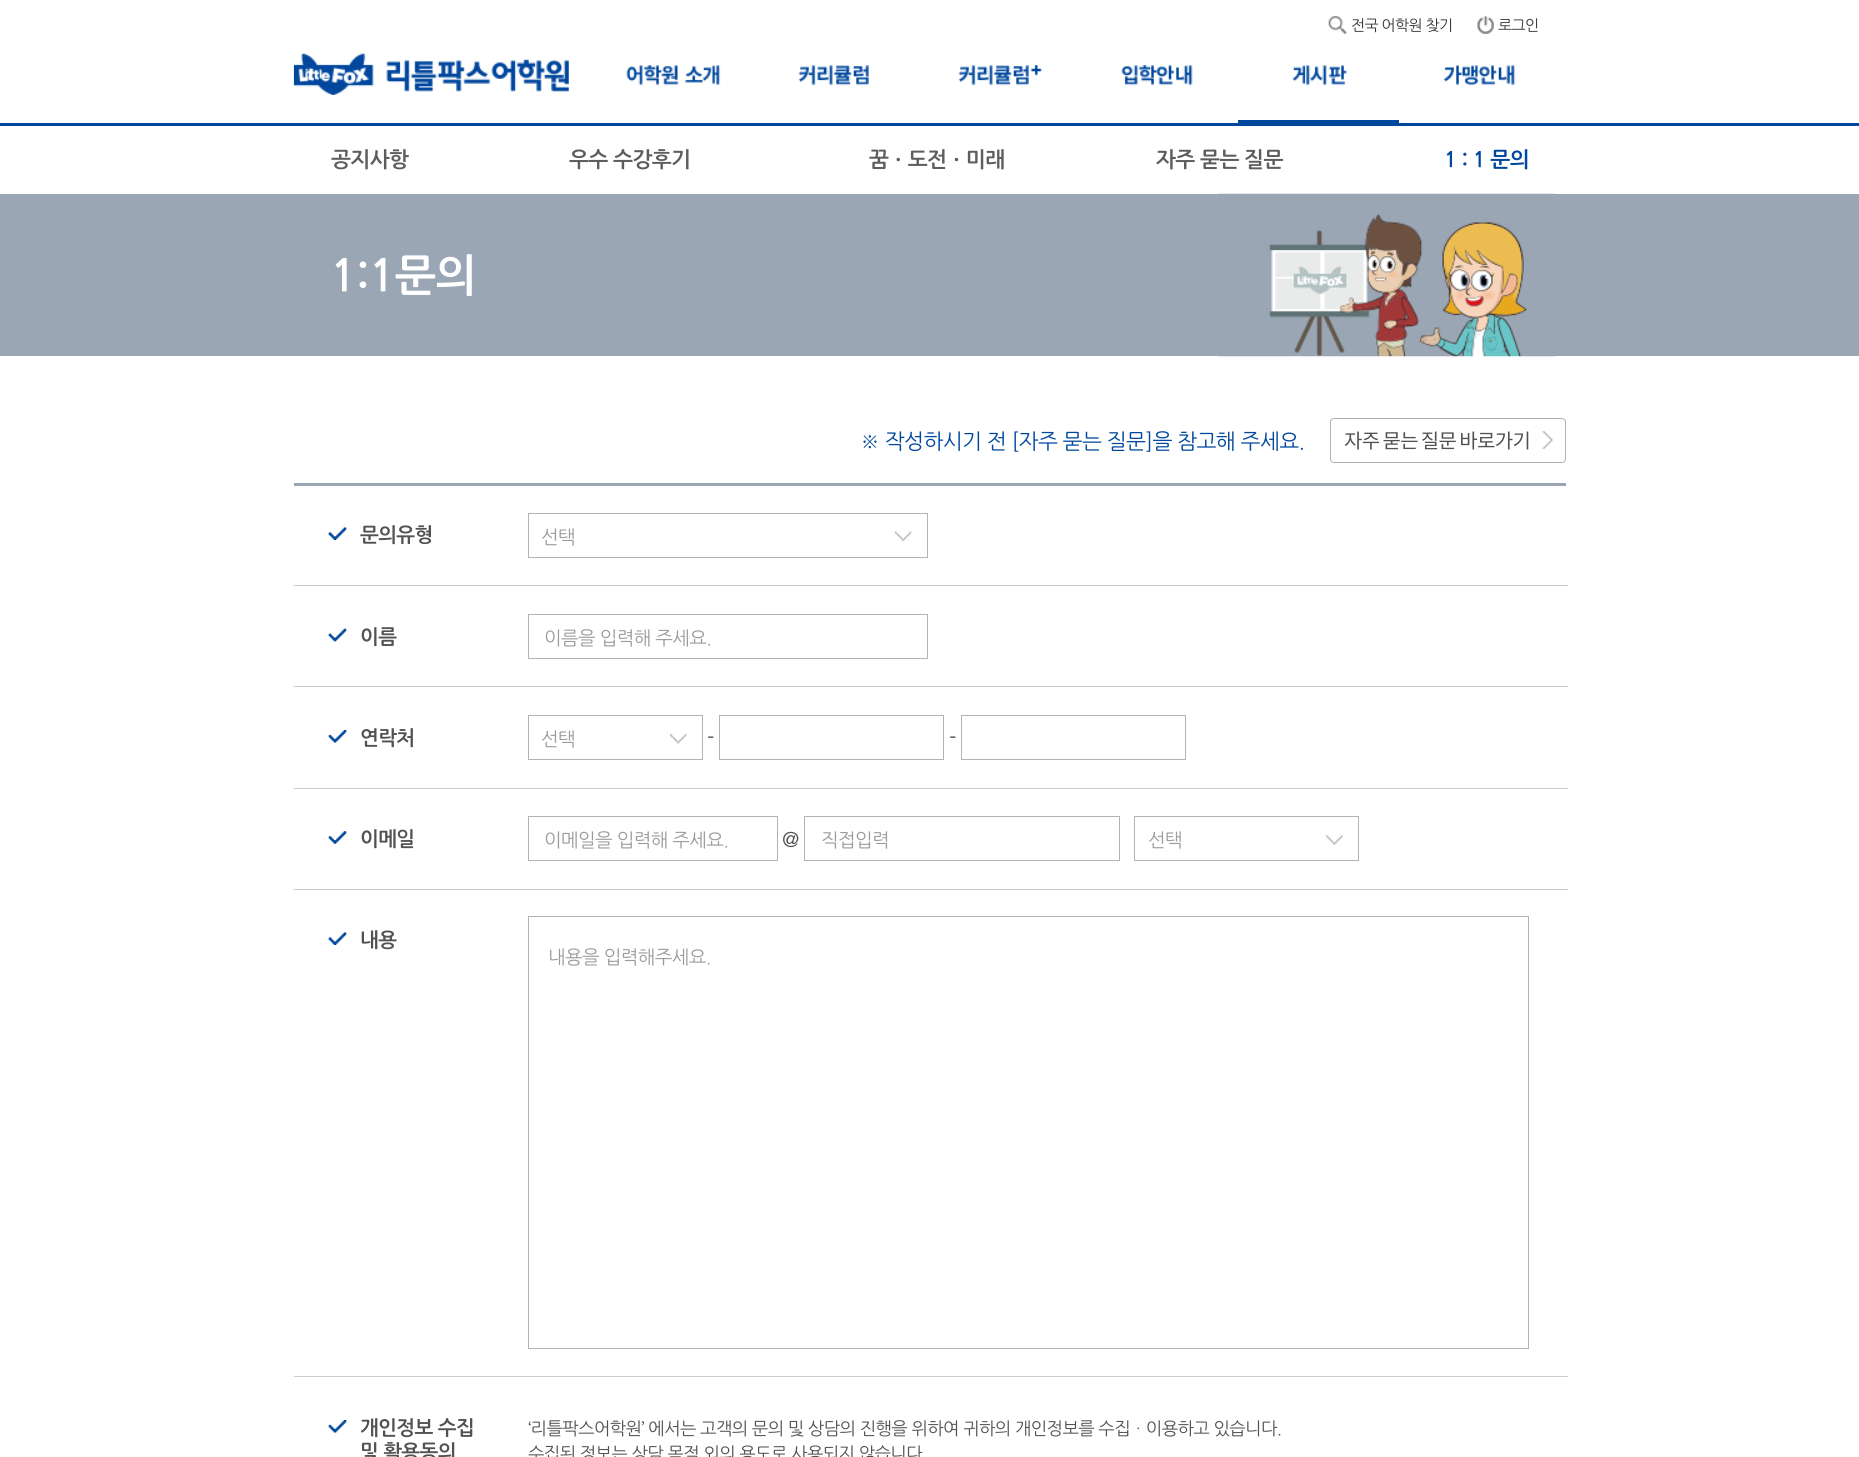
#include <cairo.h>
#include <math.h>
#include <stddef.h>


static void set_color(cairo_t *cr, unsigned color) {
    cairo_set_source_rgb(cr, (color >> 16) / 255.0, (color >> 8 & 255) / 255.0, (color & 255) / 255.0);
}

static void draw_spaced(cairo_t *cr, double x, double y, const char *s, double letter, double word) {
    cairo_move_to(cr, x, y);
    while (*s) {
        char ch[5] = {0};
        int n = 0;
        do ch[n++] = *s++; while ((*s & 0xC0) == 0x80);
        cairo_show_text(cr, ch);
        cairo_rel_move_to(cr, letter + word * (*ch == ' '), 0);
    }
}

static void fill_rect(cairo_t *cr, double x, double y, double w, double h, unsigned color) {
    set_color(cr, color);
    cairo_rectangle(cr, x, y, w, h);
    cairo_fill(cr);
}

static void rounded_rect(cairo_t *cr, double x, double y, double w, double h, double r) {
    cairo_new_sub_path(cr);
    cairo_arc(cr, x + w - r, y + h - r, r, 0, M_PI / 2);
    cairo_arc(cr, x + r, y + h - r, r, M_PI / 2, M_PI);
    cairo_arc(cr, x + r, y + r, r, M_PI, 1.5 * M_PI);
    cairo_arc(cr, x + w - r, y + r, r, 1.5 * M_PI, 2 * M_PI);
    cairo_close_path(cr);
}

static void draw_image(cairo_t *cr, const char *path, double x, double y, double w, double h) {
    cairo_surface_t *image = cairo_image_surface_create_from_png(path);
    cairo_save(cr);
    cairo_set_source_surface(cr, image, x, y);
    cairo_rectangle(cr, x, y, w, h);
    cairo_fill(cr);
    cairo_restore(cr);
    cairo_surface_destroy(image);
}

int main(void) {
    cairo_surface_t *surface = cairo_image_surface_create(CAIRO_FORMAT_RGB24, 1859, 1457);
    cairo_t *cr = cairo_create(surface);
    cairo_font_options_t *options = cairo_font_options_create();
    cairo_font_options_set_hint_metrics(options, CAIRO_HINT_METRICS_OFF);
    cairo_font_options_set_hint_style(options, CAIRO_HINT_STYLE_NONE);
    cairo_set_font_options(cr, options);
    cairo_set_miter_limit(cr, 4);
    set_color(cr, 0xFFFFFF);
    cairo_paint(cr);
    fill_rect(cr, 0, 123, 1859, 3, 0x00479C);
    draw_image(cr, "assets/img1.png", 1328, 16, 19, 18);
    cairo_select_font_face(cr, "NanumGothic", CAIRO_FONT_SLANT_NORMAL, CAIRO_FONT_WEIGHT_NORMAL);
    cairo_set_font_size(cr, 15);
    set_color(cr, 0x333333);
    draw_spaced(cr, 1351, 30, "전국 어학원 찾기", -0.62, 0);
    draw_image(cr, "assets/img2.png", 1477, 16, 17, 18);
    draw_spaced(cr, 1498, 30, "로그인", -0.62, 0);
    draw_image(cr, "assets/img3.png", 293, 53, 276, 42);
    draw_image(cr, "assets/img4.png", 626, 65, 95, 21);
    draw_image(cr, "assets/img5.png", 798, 65, 71, 21);
    draw_image(cr, "assets/img6.png", 958, 65, 84, 21);
    draw_image(cr, "assets/img7.png", 1121, 65, 72, 21);
    fill_rect(cr, 1238, 120, 161, 3, 0x00479D);
    draw_image(cr, "assets/img8.png", 1292, 65, 55, 21);
    draw_image(cr, "assets/img9.png", 1443, 65, 73, 21);
    cairo_select_font_face(cr, "NanumGothic", CAIRO_FONT_SLANT_NORMAL, CAIRO_FONT_WEIGHT_BOLD);
    cairo_set_font_size(cr, 21.25);
    set_color(cr, 0x5D5D5D);
    draw_spaced(cr, 331, 166, "공지사항", -0.62, 0);
    draw_spaced(cr, 569, 166, "우수 수강후기", -0.62, 0);
    draw_spaced(cr, 869, 166, "꿈ㆍ도전ㆍ미래", -0.62, 0);
    draw_spaced(cr, 1156, 166, "자주 묻는 질문", -0.62, 0);
    set_color(cr, 0x00479D);
    draw_spaced(cr, 1444, 166, "1 : 1 문의", -0.62, 0);
    fill_rect(cr, 0, 194, 1859, 162, 0x9BA6B4);
    cairo_set_font_size(cr, 44);
    set_color(cr, 0xFFFFFF);
    draw_spaced(cr, 330, 289, "1:1문의", -0.62, 0);
    draw_image(cr, "assets/img10.png", 1217, 193, 338, 164);
    cairo_select_font_face(cr, "NanumGothic", CAIRO_FONT_SLANT_NORMAL, CAIRO_FONT_WEIGHT_NORMAL);
    cairo_set_font_size(cr, 21.25);
    set_color(cr, 0x00479D);
    draw_spaced(cr, 860, 448, "※ 작성하시기 전 [자주 묻는 질문]을 참고해 주세요.", -0.62, 0);
    rounded_rect(cr, 1330.5, 418.5, 235, 44, 3.5);
    set_color(cr, 0xB2B2B2);
    cairo_set_line_width(cr, 1);
    cairo_stroke(cr);
    cairo_select_font_face(cr, "Noto Sans KR", CAIRO_FONT_SLANT_NORMAL, CAIRO_FONT_WEIGHT_NORMAL);
    cairo_set_font_size(cr, 20);
    set_color(cr, 0x525252);
    draw_spaced(cr, 1344, 448, "자주 묻는 질문 바로가기", -0.62, -1);
    draw_image(cr, "assets/img11.png", 1542, 431, 11, 18);
    fill_rect(cr, 294, 483, 1272, 3, 0x9BA6B4);
    draw_image(cr, "assets/img12.png", 328, 527, 19, 13);
    cairo_select_font_face(cr, "NanumGothic", CAIRO_FONT_SLANT_NORMAL, CAIRO_FONT_WEIGHT_BOLD);
    set_color(cr, 0x525252);
    draw_spaced(cr, 360, 541, "문의유형", -0.62, 0);
    cairo_rectangle(cr, 528.5, 513.5, 399, 44);
    set_color(cr, 0xB3B3B3);
    cairo_stroke(cr);
    cairo_select_font_face(cr, "NanumGothic", CAIRO_FONT_SLANT_NORMAL, CAIRO_FONT_WEIGHT_NORMAL);
    cairo_set_font_size(cr, 18.75);
    set_color(cr, 0x9B9B9B);
    draw_spaced(cr, 541, 543, "선택", -0.62, 0);
    draw_image(cr, "assets/img13.png", 895, 531, 17, 11);
    draw_image(cr, "assets/img14.png", 328, 628, 19, 14);
    cairo_select_font_face(cr, "NanumGothic", CAIRO_FONT_SLANT_NORMAL, CAIRO_FONT_WEIGHT_BOLD);
    cairo_set_font_size(cr, 20);
    set_color(cr, 0x525252);
    draw_spaced(cr, 360, 643, "이름", -0.62, 0);
    fill_rect(cr, 294, 585, 1274, 1, 0xCCCCCC);
    cairo_rectangle(cr, 528.5, 614.5, 399, 44);
    set_color(cr, 0xB3B3B3);
    cairo_stroke(cr);
    cairo_select_font_face(cr, "NanumGothic", CAIRO_FONT_SLANT_NORMAL, CAIRO_FONT_WEIGHT_NORMAL);
    cairo_set_font_size(cr, 18.75);
    set_color(cr, 0x9B9B9B);
    draw_spaced(cr, 544, 644, "이름을 입력해 주세요.", -0.62, 0);
    draw_image(cr, "assets/img15.png", 328, 730, 19, 13);
    cairo_select_font_face(cr, "NanumGothic", CAIRO_FONT_SLANT_NORMAL, CAIRO_FONT_WEIGHT_BOLD);
    cairo_set_font_size(cr, 20);
    set_color(cr, 0x525252);
    draw_spaced(cr, 360, 744, "연락처", -0.62, 0);
    fill_rect(cr, 294, 686, 1274, 1, 0xCCCCCC);
    cairo_rectangle(cr, 528.5, 715.5, 174, 44);
    set_color(cr, 0xB3B3B3);
    cairo_stroke(cr);
    cairo_select_font_face(cr, "NanumGothic", CAIRO_FONT_SLANT_NORMAL, CAIRO_FONT_WEIGHT_NORMAL);
    cairo_set_font_size(cr, 18.75);
    set_color(cr, 0x9B9B9B);
    draw_spaced(cr, 541, 745, "선택", -0.62, 0);
    draw_image(cr, "assets/img16.png", 670, 733, 17, 11);
    cairo_set_font_size(cr, 20);
    set_color(cr, 0x525252);
    draw_spaced(cr, 707, 744, "-", -0.62, 0);
    cairo_rectangle(cr, 719.5, 715.5, 224, 44);
    set_color(cr, 0xB3B3B3);
    cairo_stroke(cr);
    set_color(cr, 0x525252);
    draw_spaced(cr, 949, 744, "-", -0.62, 0);
    cairo_rectangle(cr, 961.5, 715.5, 224, 44);
    set_color(cr, 0xB3B3B3);
    cairo_stroke(cr);
    draw_image(cr, "assets/img17.png", 328, 831, 19, 13);
    cairo_select_font_face(cr, "NanumGothic", CAIRO_FONT_SLANT_NORMAL, CAIRO_FONT_WEIGHT_BOLD);
    set_color(cr, 0x525252);
    draw_spaced(cr, 360, 845, "이메일", -0.62, 0);
    fill_rect(cr, 294, 788, 1274, 1, 0xCCCCCC);
    cairo_rectangle(cr, 528.5, 816.5, 249, 44);
    set_color(cr, 0xB3B3B3);
    cairo_stroke(cr);
    cairo_select_font_face(cr, "NanumGothic", CAIRO_FONT_SLANT_NORMAL, CAIRO_FONT_WEIGHT_NORMAL);
    cairo_set_font_size(cr, 18.75);
    set_color(cr, 0x9B9B9B);
    draw_spaced(cr, 544, 846, "이메일을 입력해 주세요.", -0.62, 0);
    cairo_set_font_size(cr, 20);
    set_color(cr, 0x525252);
    draw_spaced(cr, 782, 846, "@", -0.62, 0);
    cairo_rectangle(cr, 804.5, 816.5, 315, 44);
    set_color(cr, 0xB3B3B3);
    cairo_stroke(cr);
    cairo_set_font_size(cr, 18.75);
    set_color(cr, 0x9B9B9B);
    draw_spaced(cr, 821, 846, "직접입력", -0.62, 0);
    cairo_rectangle(cr, 1134.5, 816.5, 224, 44);
    set_color(cr, 0xB3B3B3);
    cairo_stroke(cr);
    set_color(cr, 0x9B9B9B);
    draw_spaced(cr, 1148, 846, "선택", -0.62, 0);
    draw_image(cr, "assets/img18.png", 1326, 835, 17, 10);
    draw_image(cr, "assets/img12.png", 328, 932, 19, 13);
    cairo_select_font_face(cr, "NanumGothic", CAIRO_FONT_SLANT_NORMAL, CAIRO_FONT_WEIGHT_BOLD);
    cairo_set_font_size(cr, 20);
    set_color(cr, 0x525252);
    draw_spaced(cr, 360, 946, "내용", -0.62, 0);
    fill_rect(cr, 294, 889, 1274, 1, 0xCCCCCC);
    cairo_rectangle(cr, 528.5, 916.5, 1000, 432);
    set_color(cr, 0xB3B3B3);
    cairo_stroke(cr);
    cairo_select_font_face(cr, "NanumGothic", CAIRO_FONT_SLANT_NORMAL, CAIRO_FONT_WEIGHT_NORMAL);
    cairo_set_font_size(cr, 18.75);
    set_color(cr, 0x9B9B9B);
    draw_spaced(cr, 548, 963, "내용을 입력해주세요.", -0.62, 0);
    draw_image(cr, "assets/img15.png", 328, 1420, 19, 13);
    cairo_select_font_face(cr, "NanumGothic", CAIRO_FONT_SLANT_NORMAL, CAIRO_FONT_WEIGHT_BOLD);
    cairo_set_font_size(cr, 20);
    set_color(cr, 0x525252);
    draw_spaced(cr, 360, 1434, "개인정보 수집", -0.62, 0);
    draw_spaced(cr, 360, 1458, "및 활용동의", -0.62, 0);
    fill_rect(cr, 294, 1376, 1274, 1, 0xCCCCCC);
    cairo_select_font_face(cr, "NanumGothic", CAIRO_FONT_SLANT_NORMAL, CAIRO_FONT_WEIGHT_NORMAL);
    cairo_set_font_size(cr, 17.5);
    set_color(cr, 0x525252);
    draw_spaced(cr, 528, 1434, "‘리틀팍스어학원’ 에서는 고객의 문의 및 상담의 진행을 위하여 귀하의 개인정보를 수집ㆍ이용하고 있습니다.", -0.62, 0);
    draw_spaced(cr, 528, 1459, "수집된 정보는 상담 목적 외의 용도로 사용되지 않습니다.", -0.62, 0);
    cairo_surface_write_to_png(surface, "output.png");
    cairo_font_options_destroy(options);
    cairo_destroy(cr);
    cairo_surface_destroy(surface);
    return 0;
}
